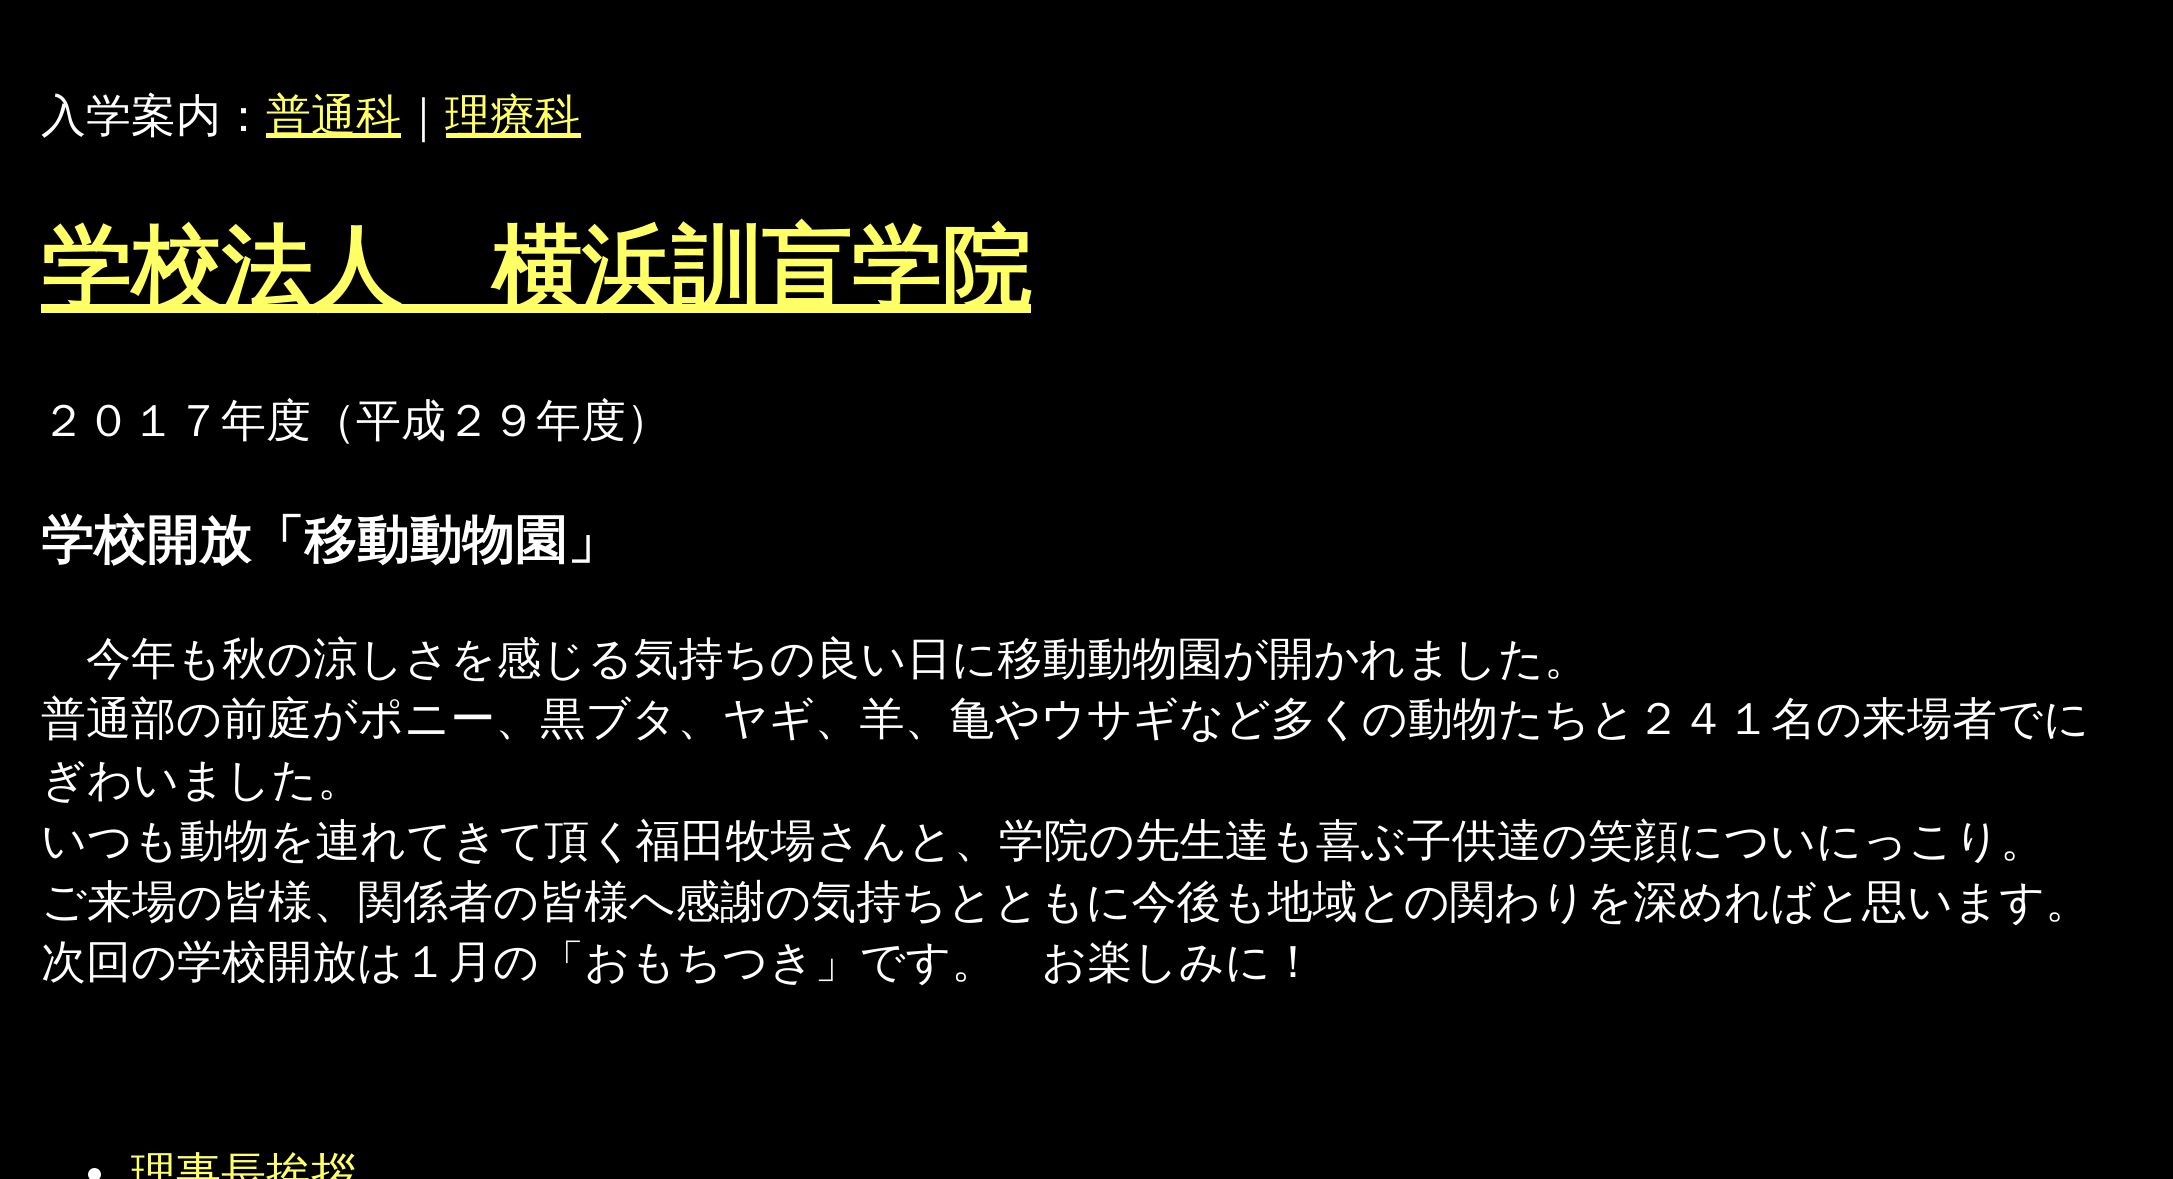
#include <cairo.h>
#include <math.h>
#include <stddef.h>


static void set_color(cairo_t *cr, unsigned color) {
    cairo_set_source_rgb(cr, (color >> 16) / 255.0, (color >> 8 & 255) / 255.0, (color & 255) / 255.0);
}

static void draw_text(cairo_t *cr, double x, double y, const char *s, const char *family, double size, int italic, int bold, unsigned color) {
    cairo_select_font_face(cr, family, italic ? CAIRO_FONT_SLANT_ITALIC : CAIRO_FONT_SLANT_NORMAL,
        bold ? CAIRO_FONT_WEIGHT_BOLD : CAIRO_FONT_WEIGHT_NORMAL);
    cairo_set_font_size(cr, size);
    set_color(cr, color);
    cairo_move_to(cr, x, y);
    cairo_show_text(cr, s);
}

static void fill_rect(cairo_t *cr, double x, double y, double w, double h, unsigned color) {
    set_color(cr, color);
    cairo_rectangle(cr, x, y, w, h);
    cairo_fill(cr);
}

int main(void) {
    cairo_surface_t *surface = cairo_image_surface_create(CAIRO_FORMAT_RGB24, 2173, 1179);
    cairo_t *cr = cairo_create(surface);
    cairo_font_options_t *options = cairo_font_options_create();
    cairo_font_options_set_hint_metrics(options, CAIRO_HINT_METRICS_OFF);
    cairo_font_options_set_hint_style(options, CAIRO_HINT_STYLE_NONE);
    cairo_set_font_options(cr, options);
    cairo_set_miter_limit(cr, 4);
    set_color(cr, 0x000000);
    cairo_paint(cr);
    draw_text(cr, 41, 131, "入学案内：", "WenQuanYi Zen Hei Medium", 45, 0, 0, 0xFFFFFF);
    fill_rect(cr, 266, 133, 135, 5, 0xFFFF66);
    draw_text(cr, 266, 131, "普通科", "WenQuanYi Zen Hei Medium", 45, 0, 0, 0xFFFF66);
    draw_text(cr, 401, 131, "｜", "WenQuanYi Zen Hei Medium", 45, 0, 0, 0xFFFFFF);
    fill_rect(cr, 446, 133, 135, 5, 0xFFFF66);
    draw_text(cr, 445, 131, "理療科", "WenQuanYi Zen Hei Medium", 45, 0, 0, 0xFFFF66);
    fill_rect(cr, 41, 304, 990, 9, 0xFFFF66);
    draw_text(cr, 41, 299, "学校法人　横浜訓盲学院", "WenQuanYi Zen Hei", 90, 0, 1, 0xFFFF66);
    draw_text(cr, 41, 436, "２０１７年度（平成２９年度）", "WenQuanYi Zen Hei Medium", 45, 0, 0, 0xFFFFFF);
    draw_text(cr, 41, 558, "学校開放「移動動物園」", "WenQuanYi Zen Hei", 52.6, 0, 1, 0xFFFFFF);
    draw_text(cr, 86, 674, "今年も秋の涼しさを感じる気持ちの良い日に移動動物園が開かれました。", "WenQuanYi Zen Hei Medium", 45, 0, 0, 0xFFFFFF);
    draw_text(cr, 41, 734, "普通部の前庭がポニー、黒ブタ、ヤギ、羊、亀やウサギなど多くの動物たちと２４１名の来場者でに", "WenQuanYi Zen Hei Medium", 45, 0, 0, 0xFFFFFF);
    draw_text(cr, 41, 795, "ぎわいました。", "WenQuanYi Zen Hei Medium", 45, 0, 0, 0xFFFFFF);
    draw_text(cr, 41, 856, "いつも動物を連れてきて頂く福田牧場さんと、学院の先生達も喜ぶ子供達の笑顔についにっこり。", "WenQuanYi Zen Hei Medium", 45, 0, 0, 0xFFFFFF);
    draw_text(cr, 41, 917, "ご来場の皆様、関係者の皆様へ感謝の気持ちとともに今後も地域との関わりを深めればと思います。", "WenQuanYi Zen Hei Medium", 45, 0, 0, 0xFFFFFF);
    draw_text(cr, 41, 977, "次回の学校開放は１月の「おもちつき」です。　お楽しみに！", "WenQuanYi Zen Hei Medium", 45, 0, 0, 0xFFFFFF);
    cairo_new_path(cr);
    cairo_arc(cr, 94.5, 1174.5, 6.5, 0, 2 * M_PI);
    cairo_fill(cr);
    draw_text(cr, 131, 1189, "理事長挨拶", "WenQuanYi Zen Hei Medium", 45, 0, 0, 0xFFFF66);
    cairo_surface_write_to_png(surface, "output.png");
    cairo_font_options_destroy(options);
    cairo_destroy(cr);
    cairo_surface_destroy(surface);
    return 0;
}
